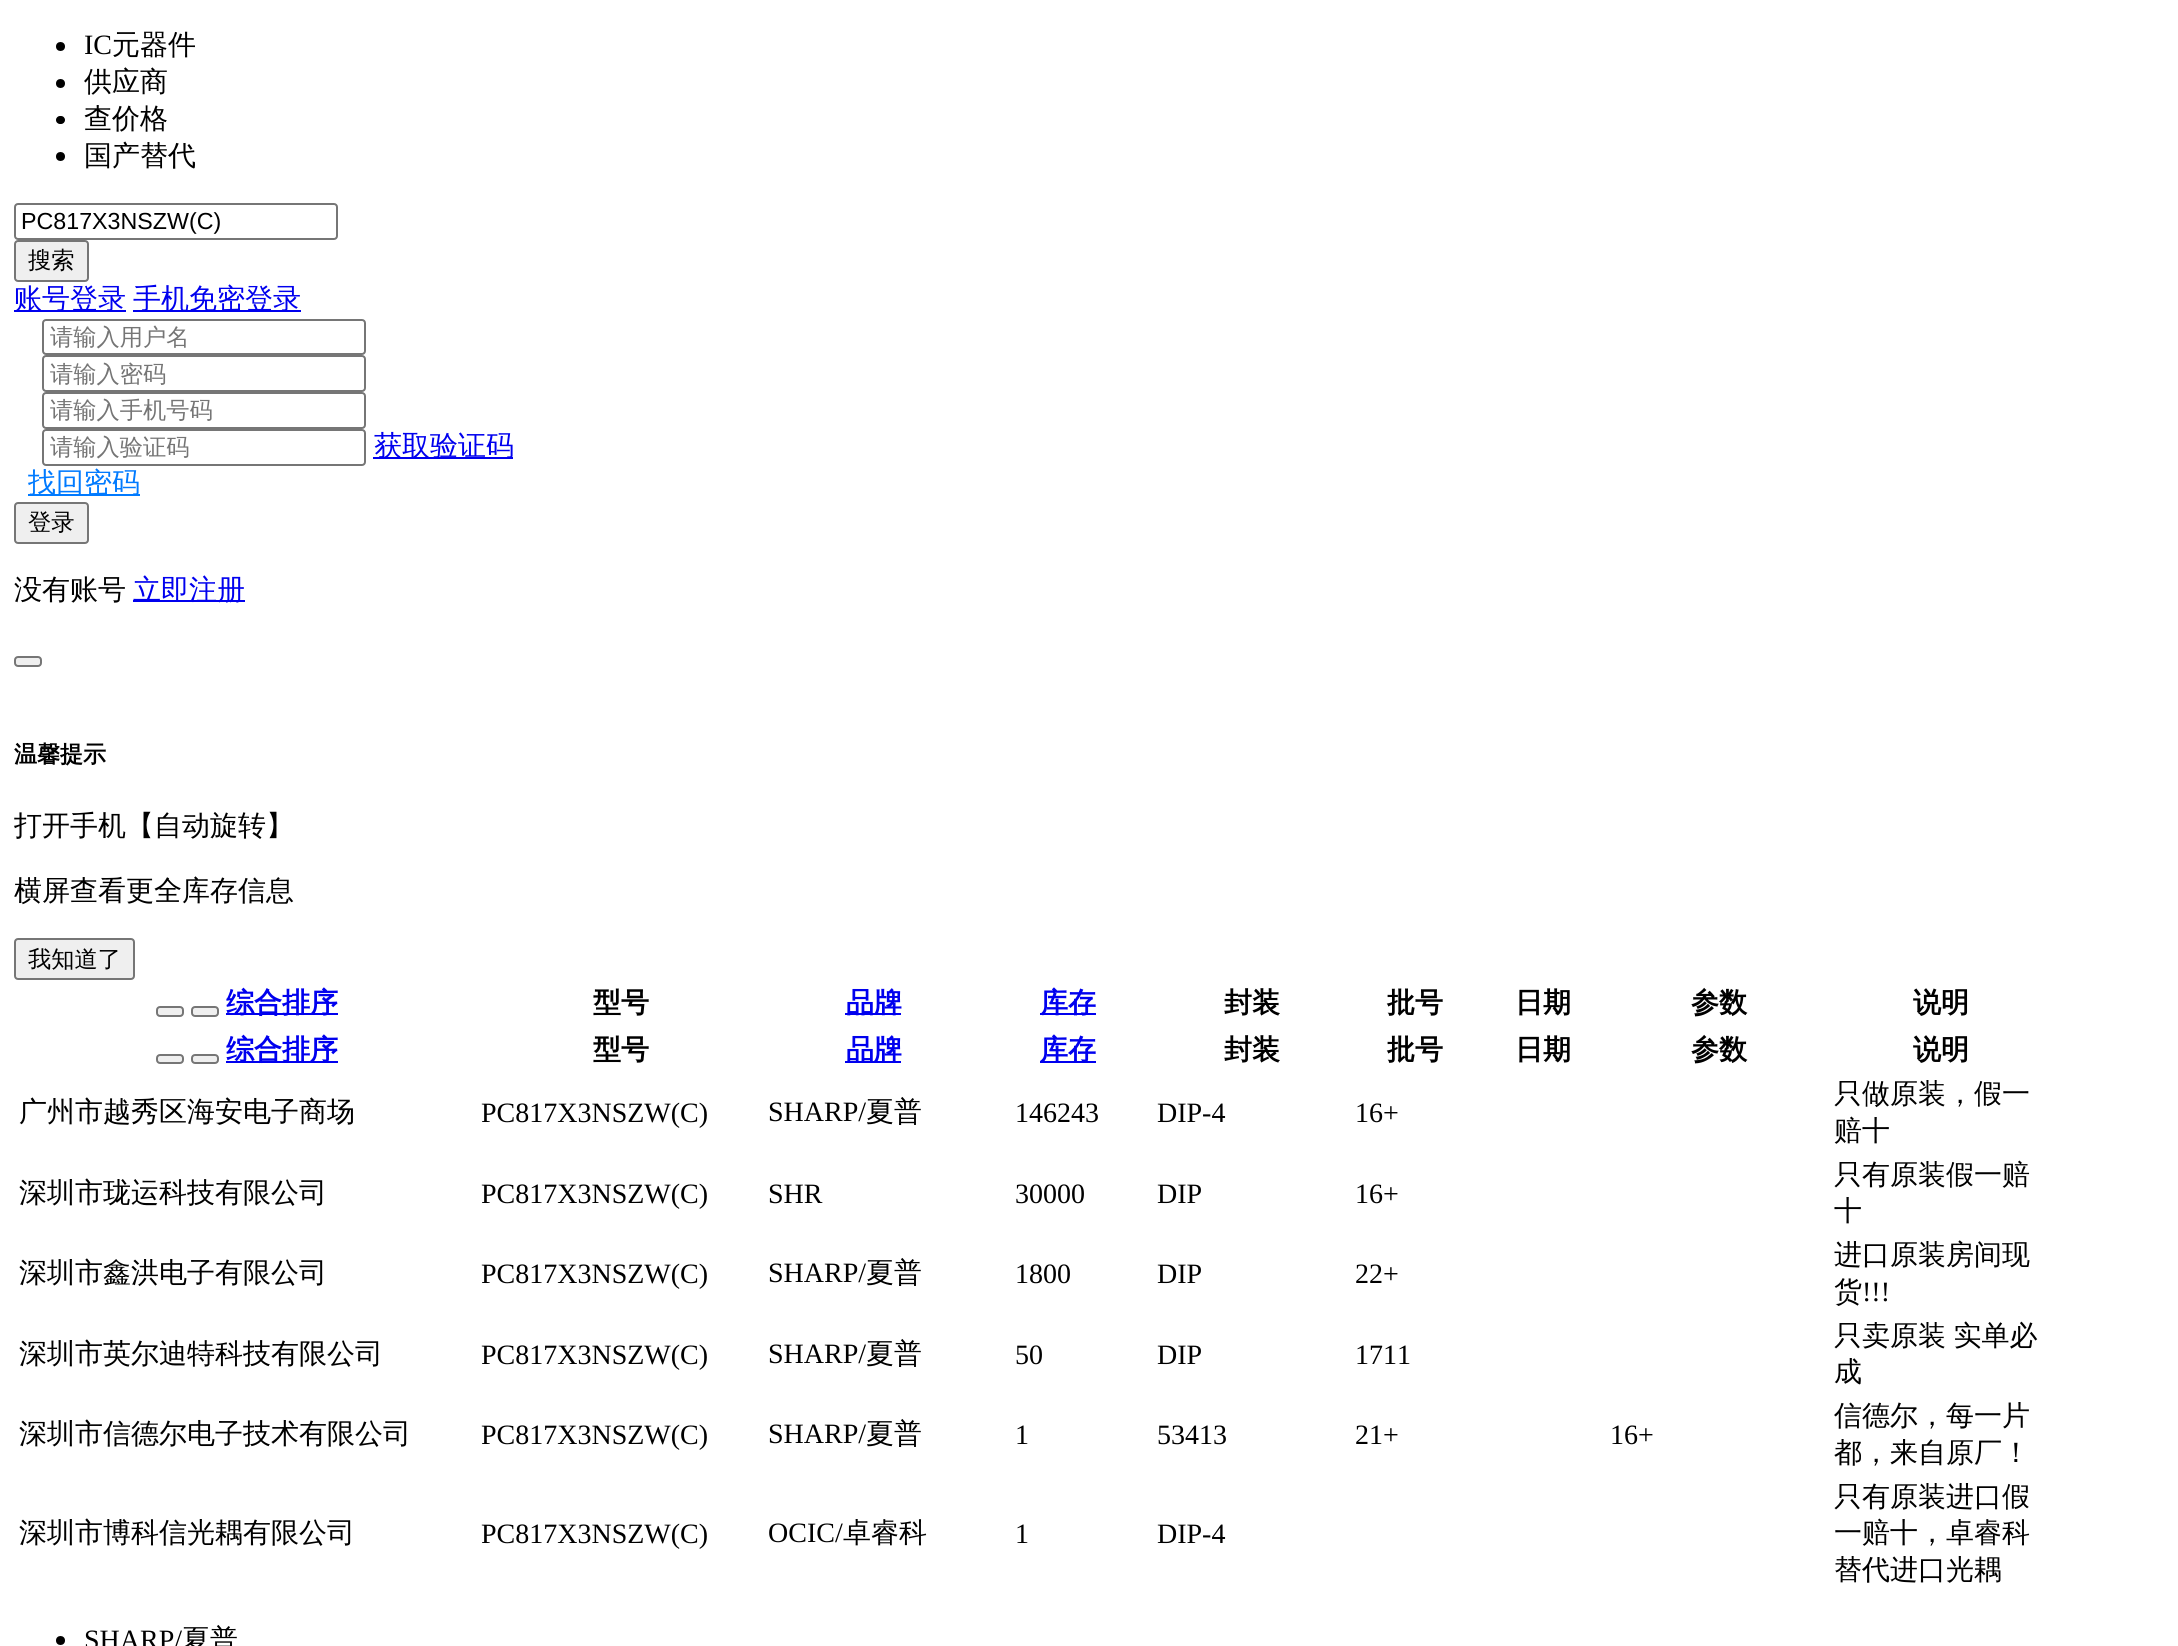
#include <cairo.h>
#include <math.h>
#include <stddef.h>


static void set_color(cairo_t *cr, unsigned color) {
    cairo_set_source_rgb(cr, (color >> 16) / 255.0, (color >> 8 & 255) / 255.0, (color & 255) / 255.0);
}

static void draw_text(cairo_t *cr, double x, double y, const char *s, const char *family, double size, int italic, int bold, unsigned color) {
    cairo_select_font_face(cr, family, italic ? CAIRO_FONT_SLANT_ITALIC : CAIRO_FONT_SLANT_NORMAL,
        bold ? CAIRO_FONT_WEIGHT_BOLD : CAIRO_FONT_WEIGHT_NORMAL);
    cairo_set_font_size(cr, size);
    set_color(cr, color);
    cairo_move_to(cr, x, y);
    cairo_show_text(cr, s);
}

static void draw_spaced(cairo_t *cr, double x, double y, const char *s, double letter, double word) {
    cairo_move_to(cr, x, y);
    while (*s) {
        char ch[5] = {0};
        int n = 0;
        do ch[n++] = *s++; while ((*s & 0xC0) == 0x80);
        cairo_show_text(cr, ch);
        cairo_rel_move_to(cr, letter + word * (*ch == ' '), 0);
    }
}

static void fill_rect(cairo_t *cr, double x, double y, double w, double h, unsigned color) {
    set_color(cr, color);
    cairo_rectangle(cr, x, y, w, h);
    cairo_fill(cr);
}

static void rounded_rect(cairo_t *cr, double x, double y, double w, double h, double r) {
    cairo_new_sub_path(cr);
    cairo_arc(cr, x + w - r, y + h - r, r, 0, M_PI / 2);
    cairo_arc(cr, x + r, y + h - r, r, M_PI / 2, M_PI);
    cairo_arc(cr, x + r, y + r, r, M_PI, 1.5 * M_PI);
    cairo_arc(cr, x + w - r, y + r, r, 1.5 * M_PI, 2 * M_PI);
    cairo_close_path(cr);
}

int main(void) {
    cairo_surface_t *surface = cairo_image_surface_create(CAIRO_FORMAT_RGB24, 2178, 1646);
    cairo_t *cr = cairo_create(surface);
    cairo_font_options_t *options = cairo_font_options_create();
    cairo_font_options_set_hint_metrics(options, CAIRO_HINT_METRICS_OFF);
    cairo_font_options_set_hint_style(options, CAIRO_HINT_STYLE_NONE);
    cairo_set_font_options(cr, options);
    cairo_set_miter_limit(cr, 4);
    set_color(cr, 0xFFFFFF);
    cairo_paint(cr);
    set_color(cr, 0x000000);
    cairo_arc(cr, 60.5, 46.5, 4.5, 0, 2 * M_PI);
    cairo_fill(cr);
    draw_text(cr, 84, 54, "IC", "Liberation Serif", 28, 0, 0, 0x000000);
    draw_text(cr, 112, 54, "元器件", "WenQuanYi Zen Hei Medium", 28, 0, 0, 0x000000);
    cairo_new_path(cr);
    cairo_arc(cr, 60.5, 83.5, 4.5, 0, 2 * M_PI);
    cairo_fill(cr);
    draw_text(cr, 84, 91, "供应商", "WenQuanYi Zen Hei Medium", 28, 0, 0, 0x000000);
    rounded_rect(cr, 56, 116, 9, 8, 4);
    cairo_fill(cr);
    draw_text(cr, 84, 128, "查价格", "WenQuanYi Zen Hei Medium", 28, 0, 0, 0x000000);
    cairo_new_path(cr);
    cairo_arc(cr, 60.5, 156.5, 4.5, 0, 2 * M_PI);
    cairo_fill(cr);
    draw_text(cr, 84, 165, "国产替代", "WenQuanYi Zen Hei Medium", 28, 0, 0, 0x000000);
    rounded_rect(cr, 15, 204, 322, 35, 3);
    set_color(cr, 0x767676);
    cairo_stroke(cr);
    draw_text(cr, 21, 229, "PC817X3NSZW(C)", "Liberation Sans", 23.25, 0, 0, 0x000000);
    set_color(cr, 0xEFEFEF);
    rounded_rect(cr, 15, 241, 73, 40, 3);
    cairo_fill_preserve(cr);
    set_color(cr, 0x767676);
    cairo_stroke(cr);
    draw_text(cr, 28, 268, "搜索", "WenQuanYi Zen Hei Medium", 23.25, 0, 0, 0x000000);
    fill_rect(cr, 14, 310, 112, 2, 0x0000EE);
    draw_text(cr, 14, 308, "账号登录", "WenQuanYi Zen Hei Medium", 28, 0, 0, 0x0000EE);
    fill_rect(cr, 133, 310, 168, 2, 0x0000EE);
    draw_text(cr, 133, 308, "手机免密登录", "WenQuanYi Zen Hei Medium", 28, 0, 0, 0x0000EE);
    rounded_rect(cr, 43, 320, 322, 34, 3);
    set_color(cr, 0x767676);
    cairo_stroke(cr);
    draw_text(cr, 50, 345, "请输入用户名", "WenQuanYi Zen Hei Medium", 23.25, 0, 0, 0x757575);
    rounded_rect(cr, 43, 356, 322, 35, 3);
    set_color(cr, 0x767676);
    cairo_stroke(cr);
    draw_text(cr, 50, 382, "请输入密码", "WenQuanYi Zen Hei Medium", 23.25, 0, 0, 0x757575);
    rounded_rect(cr, 43, 393, 322, 35, 3);
    set_color(cr, 0x767676);
    cairo_stroke(cr);
    draw_text(cr, 50, 418, "请输入手机号码", "WenQuanYi Zen Hei Medium", 23.25, 0, 0, 0x757575);
    rounded_rect(cr, 43, 430, 322, 35, 3);
    set_color(cr, 0x767676);
    cairo_stroke(cr);
    draw_text(cr, 50, 455, "请输入验证码", "WenQuanYi Zen Hei Medium", 23.25, 0, 0, 0x757575);
    fill_rect(cr, 373, 457, 140, 2, 0x0000EE);
    draw_text(cr, 374, 455, "获取验证码", "WenQuanYi Zen Hei Medium", 28, 0, 0, 0x0000EE);
    fill_rect(cr, 28, 494, 112, 2, 0x007AFF);
    draw_text(cr, 28, 492, "找回密码", "WenQuanYi Zen Hei Medium", 28, 0, 0, 0x007AFF);
    set_color(cr, 0xEFEFEF);
    rounded_rect(cr, 15, 503, 73, 40, 3);
    cairo_fill_preserve(cr);
    set_color(cr, 0x767676);
    cairo_stroke(cr);
    draw_text(cr, 28, 530, "登录", "WenQuanYi Zen Hei Medium", 23.25, 0, 0, 0x000000);
    draw_text(cr, 14, 599, "没有账号", "WenQuanYi Zen Hei Medium", 28, 0, 0, 0x000000);
    fill_rect(cr, 133, 600, 112, 2, 0x0000EE);
    draw_text(cr, 133, 599, "立即注册", "WenQuanYi Zen Hei Medium", 28, 0, 0, 0x0000EE);
    set_color(cr, 0xEFEFEF);
    rounded_rect(cr, 15, 657, 26, 9, 3);
    cairo_fill_preserve(cr);
    set_color(cr, 0x767676);
    cairo_stroke(cr);
    draw_text(cr, 14, 762, "温馨提示", "WenQuanYi Zen Hei", 23, 0, 1, 0x000000);
    draw_text(cr, 14, 835, "打开手机【自动旋转】", "WenQuanYi Zen Hei Medium", 28, 0, 0, 0x000000);
    draw_text(cr, 14, 900, "横屏查看更全库存信息", "WenQuanYi Zen Hei Medium", 28, 0, 0, 0x000000);
    set_color(cr, 0xEFEFEF);
    rounded_rect(cr, 15, 939, 119, 40, 3);
    cairo_fill_preserve(cr);
    set_color(cr, 0x767676);
    cairo_stroke(cr);
    draw_text(cr, 28, 967, "我知道了", "WenQuanYi Zen Hei Medium", 23.25, 0, 0, 0x000000);
    set_color(cr, 0xEFEFEF);
    rounded_rect(cr, 157, 1007, 26, 9, 3);
    cairo_fill_preserve(cr);
    set_color(cr, 0x767676);
    cairo_stroke(cr);
    set_color(cr, 0xEFEFEF);
    rounded_rect(cr, 192, 1007, 26, 9, 3);
    cairo_fill_preserve(cr);
    set_color(cr, 0x767676);
    cairo_stroke(cr);
    fill_rect(cr, 226, 1013, 112, 2, 0x0000EE);
    draw_text(cr, 226, 1012, "综合排序", "WenQuanYi Zen Hei", 28, 0, 1, 0x0000EE);
    draw_text(cr, 593, 1012, "型号", "WenQuanYi Zen Hei", 28, 0, 1, 0x000000);
    fill_rect(cr, 845, 1013, 56, 2, 0x0000EE);
    draw_text(cr, 846, 1012, "品牌", "WenQuanYi Zen Hei", 28, 0, 1, 0x0000EE);
    fill_rect(cr, 1040, 1013, 56, 2, 0x0000EE);
    draw_text(cr, 1040, 1012, "库存", "WenQuanYi Zen Hei", 28, 0, 1, 0x0000EE);
    draw_text(cr, 1224, 1012, "封装", "WenQuanYi Zen Hei", 28, 0, 1, 0x000000);
    draw_text(cr, 1387, 1012, "批号", "WenQuanYi Zen Hei", 28, 0, 1, 0x000000);
    draw_text(cr, 1515, 1012, "日期", "WenQuanYi Zen Hei", 28, 0, 1, 0x000000);
    draw_text(cr, 1691, 1012, "参数", "WenQuanYi Zen Hei", 28, 0, 1, 0x000000);
    draw_text(cr, 1913, 1012, "说明", "WenQuanYi Zen Hei", 28, 0, 1, 0x000000);
    set_color(cr, 0xEFEFEF);
    rounded_rect(cr, 157, 1055, 26, 8, 3);
    cairo_fill_preserve(cr);
    set_color(cr, 0x767676);
    cairo_stroke(cr);
    set_color(cr, 0xEFEFEF);
    rounded_rect(cr, 192, 1055, 26, 8, 3);
    cairo_fill_preserve(cr);
    set_color(cr, 0x767676);
    cairo_stroke(cr);
    fill_rect(cr, 226, 1061, 112, 2, 0x0000EE);
    draw_text(cr, 226, 1059, "综合排序", "WenQuanYi Zen Hei", 28, 0, 1, 0x0000EE);
    draw_text(cr, 593, 1059, "型号", "WenQuanYi Zen Hei", 28, 0, 1, 0x000000);
    fill_rect(cr, 845, 1061, 56, 2, 0x0000EE);
    draw_text(cr, 846, 1059, "品牌", "WenQuanYi Zen Hei", 28, 0, 1, 0x0000EE);
    fill_rect(cr, 1040, 1061, 56, 2, 0x0000EE);
    draw_text(cr, 1040, 1059, "库存", "WenQuanYi Zen Hei", 28, 0, 1, 0x0000EE);
    draw_text(cr, 1224, 1059, "封装", "WenQuanYi Zen Hei", 28, 0, 1, 0x000000);
    draw_text(cr, 1387, 1059, "批号", "WenQuanYi Zen Hei", 28, 0, 1, 0x000000);
    draw_text(cr, 1515, 1059, "日期", "WenQuanYi Zen Hei", 28, 0, 1, 0x000000);
    draw_text(cr, 1691, 1059, "参数", "WenQuanYi Zen Hei", 28, 0, 1, 0x000000);
    draw_text(cr, 1913, 1059, "说明", "WenQuanYi Zen Hei", 28, 0, 1, 0x000000);
    draw_text(cr, 19, 1121, "广州市越秀区海安电子商场", "WenQuanYi Zen Hei Medium", 28, 0, 0, 0x000000);
    draw_text(cr, 481, 1122, "PC817X3NSZW(C)", "Liberation Serif", 28, 0, 0, 0x000000);
    draw_text(cr, 768, 1121, "SHARP/", "Liberation Serif", 28, 0, 0, 0x000000);
    draw_text(cr, 866, 1121, "夏普", "WenQuanYi Zen Hei Medium", 28, 0, 0, 0x000000);
    draw_text(cr, 1015, 1122, "146243", "Liberation Serif", 28, 0, 0, 0x000000);
    draw_text(cr, 1157, 1122, "DIP-4", "Liberation Serif", 28, 0, 0, 0x000000);
    draw_text(cr, 1355, 1122, "16+", "Liberation Serif", 28, 0, 0, 0x000000);
    draw_text(cr, 1834, 1103, "只做原装，假一", "WenQuanYi Zen Hei Medium", 28, 0, 0, 0x000000);
    draw_text(cr, 1834, 1140, "赔十", "WenQuanYi Zen Hei Medium", 28, 0, 0, 0x000000);
    draw_text(cr, 19, 1202, "深圳市珑运科技有限公司", "WenQuanYi Zen Hei Medium", 28, 0, 0, 0x000000);
    draw_text(cr, 481, 1203, "PC817X3NSZW(C)", "Liberation Serif", 28, 0, 0, 0x000000);
    draw_text(cr, 768, 1203, "SHR", "Liberation Serif", 28, 0, 0, 0x000000);
    draw_text(cr, 1015, 1203, "30000", "Liberation Serif", 28, 0, 0, 0x000000);
    draw_text(cr, 1157, 1203, "DIP", "Liberation Serif", 28, 0, 0, 0x000000);
    draw_text(cr, 1355, 1203, "16+", "Liberation Serif", 28, 0, 0, 0x000000);
    draw_text(cr, 1834, 1184, "只有原装假一赔", "WenQuanYi Zen Hei Medium", 28, 0, 0, 0x000000);
    draw_text(cr, 1834, 1220, "十", "WenQuanYi Zen Hei Medium", 28, 0, 0, 0x000000);
    draw_text(cr, 19, 1282, "深圳市鑫洪电子有限公司", "WenQuanYi Zen Hei Medium", 28, 0, 0, 0x000000);
    draw_text(cr, 481, 1283, "PC817X3NSZW(C)", "Liberation Serif", 28, 0, 0, 0x000000);
    draw_text(cr, 768, 1282, "SHARP/", "Liberation Serif", 28, 0, 0, 0x000000);
    draw_text(cr, 866, 1282, "夏普", "WenQuanYi Zen Hei Medium", 28, 0, 0, 0x000000);
    draw_text(cr, 1015, 1283, "1800", "Liberation Serif", 28, 0, 0, 0x000000);
    draw_text(cr, 1157, 1283, "DIP", "Liberation Serif", 28, 0, 0, 0x000000);
    draw_text(cr, 1355, 1283, "22+", "Liberation Serif", 28, 0, 0, 0x000000);
    draw_text(cr, 1834, 1264, "进口原装房间现", "WenQuanYi Zen Hei Medium", 28, 0, 0, 0x000000);
    draw_text(cr, 1834, 1301, "货", "WenQuanYi Zen Hei Medium", 28, 0, 0, 0x000000);
    draw_text(cr, 1862, 1301, "!!!", "Liberation Serif", 28, 0, 0, 0x000000);
    draw_text(cr, 19, 1363, "深圳市英尔迪特科技有限公司", "WenQuanYi Zen Hei Medium", 28, 0, 0, 0x000000);
    draw_text(cr, 481, 1364, "PC817X3NSZW(C)", "Liberation Serif", 28, 0, 0, 0x000000);
    draw_text(cr, 768, 1363, "SHARP/", "Liberation Serif", 28, 0, 0, 0x000000);
    draw_text(cr, 866, 1363, "夏普", "WenQuanYi Zen Hei Medium", 28, 0, 0, 0x000000);
    draw_text(cr, 1015, 1364, "50", "Liberation Serif", 28, 0, 0, 0x000000);
    draw_text(cr, 1157, 1364, "DIP", "Liberation Serif", 28, 0, 0, 0x000000);
    draw_text(cr, 1355, 1364, "1711", "Liberation Serif", 28, 0, 0, 0x000000);
    cairo_select_font_face(cr, "WenQuanYi Zen Hei Medium", CAIRO_FONT_SLANT_NORMAL, CAIRO_FONT_WEIGHT_NORMAL);
    draw_spaced(cr, 1834, 1345, "只卖原装 实单必", 0, -1);
    draw_text(cr, 1834, 1381, "成", "WenQuanYi Zen Hei Medium", 28, 0, 0, 0x000000);
    draw_text(cr, 19, 1443, "深圳市信德尔电子技术有限公司", "WenQuanYi Zen Hei Medium", 28, 0, 0, 0x000000);
    draw_text(cr, 481, 1444, "PC817X3NSZW(C)", "Liberation Serif", 28, 0, 0, 0x000000);
    draw_text(cr, 768, 1443, "SHARP/", "Liberation Serif", 28, 0, 0, 0x000000);
    draw_text(cr, 866, 1443, "夏普", "WenQuanYi Zen Hei Medium", 28, 0, 0, 0x000000);
    draw_text(cr, 1015, 1444, "1", "Liberation Serif", 28, 0, 0, 0x000000);
    draw_text(cr, 1157, 1444, "53413", "Liberation Serif", 28, 0, 0, 0x000000);
    draw_text(cr, 1355, 1444, "21+", "Liberation Serif", 28, 0, 0, 0x000000);
    draw_text(cr, 1610, 1444, "16+", "Liberation Serif", 28, 0, 0, 0x000000);
    draw_text(cr, 1834, 1425, "信德尔，每一片", "WenQuanYi Zen Hei Medium", 28, 0, 0, 0x000000);
    draw_text(cr, 1834, 1462, "都，来自原厂！", "WenQuanYi Zen Hei Medium", 28, 0, 0, 0x000000);
    draw_text(cr, 19, 1542, "深圳市博科信光耦有限公司", "WenQuanYi Zen Hei Medium", 28, 0, 0, 0x000000);
    draw_text(cr, 481, 1543, "PC817X3NSZW(C)", "Liberation Serif", 28, 0, 0, 0x000000);
    draw_text(cr, 768, 1542, "OCIC/", "Liberation Serif", 28, 0, 0, 0x000000);
    draw_text(cr, 843, 1542, "卓睿科", "WenQuanYi Zen Hei Medium", 28, 0, 0, 0x000000);
    draw_text(cr, 1015, 1543, "1", "Liberation Serif", 28, 0, 0, 0x000000);
    draw_text(cr, 1157, 1543, "DIP-4", "Liberation Serif", 28, 0, 0, 0x000000);
    draw_text(cr, 1834, 1506, "只有原装进口假", "WenQuanYi Zen Hei Medium", 28, 0, 0, 0x000000);
    draw_text(cr, 1834, 1542, "一赔十，卓睿科", "WenQuanYi Zen Hei Medium", 28, 0, 0, 0x000000);
    draw_text(cr, 1834, 1579, "替代进口光耦", "WenQuanYi Zen Hei Medium", 28, 0, 0, 0x000000);
    cairo_new_path(cr);
    cairo_arc(cr, 60.5, 1640.5, 4.5, 0, 2 * M_PI);
    cairo_fill(cr);
    draw_text(cr, 84, 1649, "SHARP/", "Liberation Serif", 28, 0, 0, 0x000000);
    draw_text(cr, 182, 1649, "夏普", "WenQuanYi Zen Hei Medium", 28, 0, 0, 0x000000);
    cairo_surface_write_to_png(surface, "output.png");
    cairo_font_options_destroy(options);
    cairo_destroy(cr);
    cairo_surface_destroy(surface);
    return 0;
}
